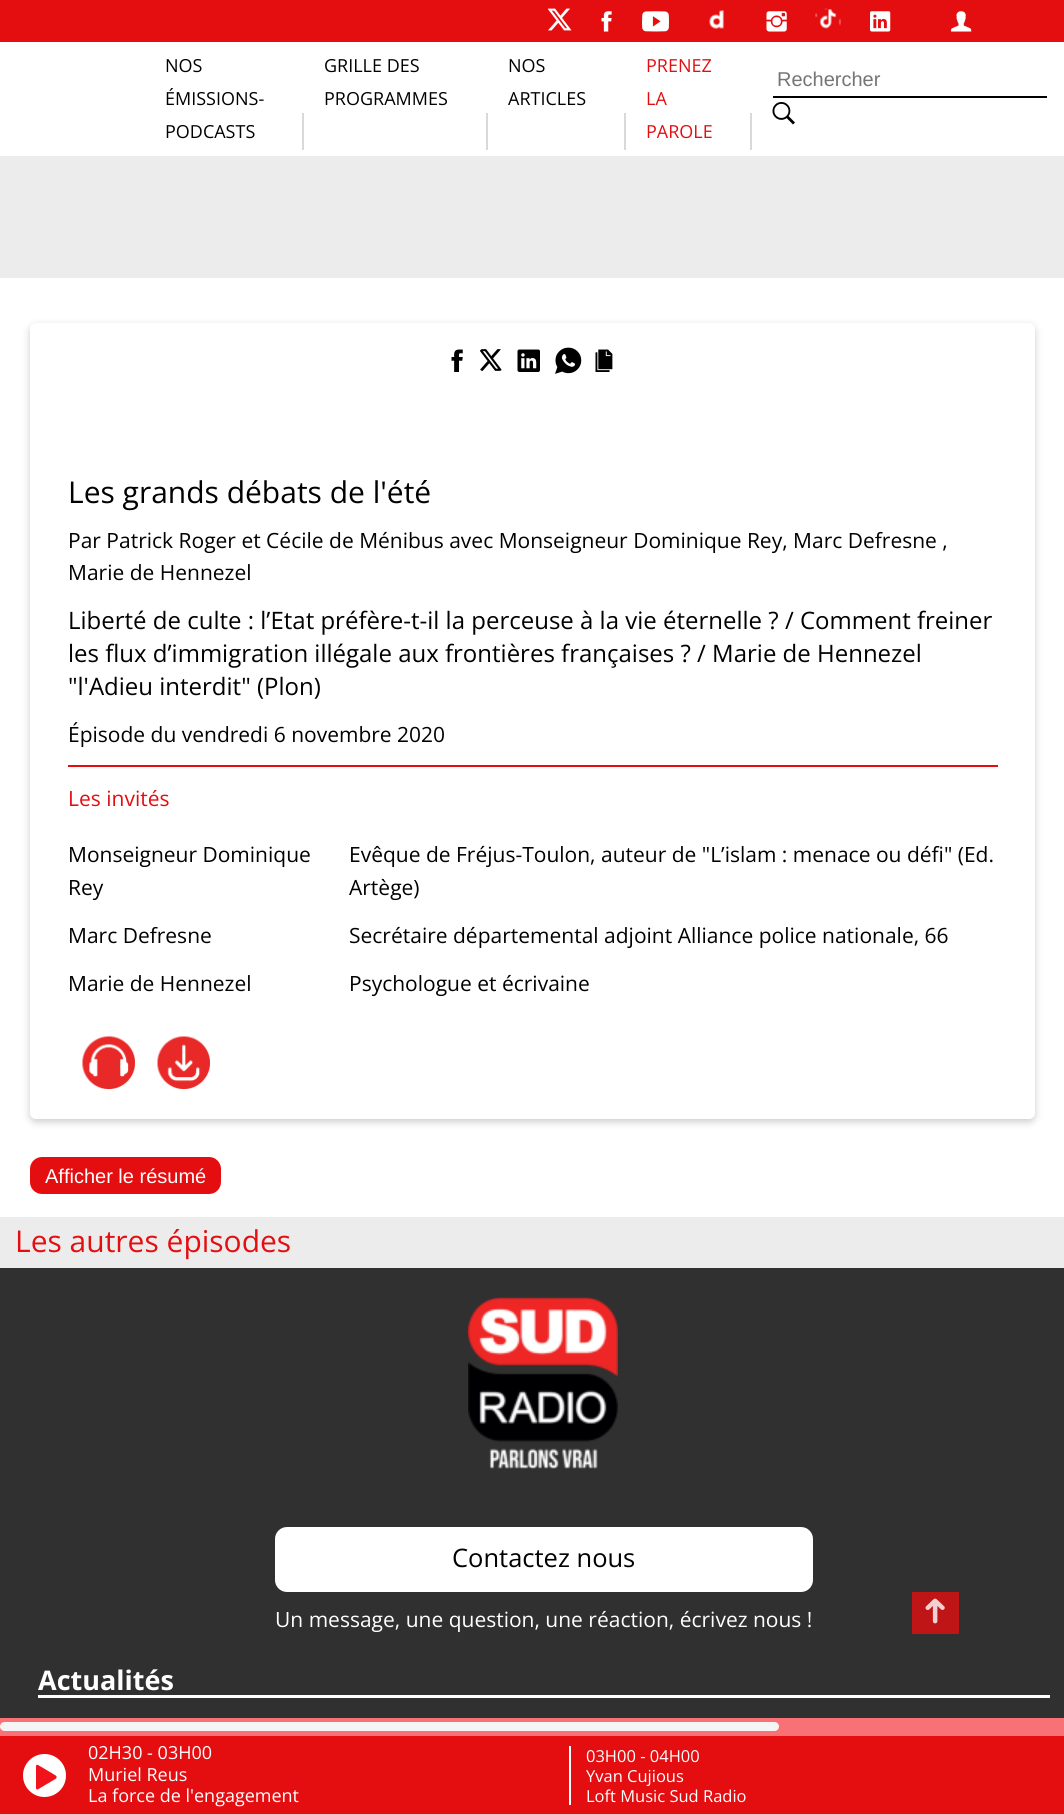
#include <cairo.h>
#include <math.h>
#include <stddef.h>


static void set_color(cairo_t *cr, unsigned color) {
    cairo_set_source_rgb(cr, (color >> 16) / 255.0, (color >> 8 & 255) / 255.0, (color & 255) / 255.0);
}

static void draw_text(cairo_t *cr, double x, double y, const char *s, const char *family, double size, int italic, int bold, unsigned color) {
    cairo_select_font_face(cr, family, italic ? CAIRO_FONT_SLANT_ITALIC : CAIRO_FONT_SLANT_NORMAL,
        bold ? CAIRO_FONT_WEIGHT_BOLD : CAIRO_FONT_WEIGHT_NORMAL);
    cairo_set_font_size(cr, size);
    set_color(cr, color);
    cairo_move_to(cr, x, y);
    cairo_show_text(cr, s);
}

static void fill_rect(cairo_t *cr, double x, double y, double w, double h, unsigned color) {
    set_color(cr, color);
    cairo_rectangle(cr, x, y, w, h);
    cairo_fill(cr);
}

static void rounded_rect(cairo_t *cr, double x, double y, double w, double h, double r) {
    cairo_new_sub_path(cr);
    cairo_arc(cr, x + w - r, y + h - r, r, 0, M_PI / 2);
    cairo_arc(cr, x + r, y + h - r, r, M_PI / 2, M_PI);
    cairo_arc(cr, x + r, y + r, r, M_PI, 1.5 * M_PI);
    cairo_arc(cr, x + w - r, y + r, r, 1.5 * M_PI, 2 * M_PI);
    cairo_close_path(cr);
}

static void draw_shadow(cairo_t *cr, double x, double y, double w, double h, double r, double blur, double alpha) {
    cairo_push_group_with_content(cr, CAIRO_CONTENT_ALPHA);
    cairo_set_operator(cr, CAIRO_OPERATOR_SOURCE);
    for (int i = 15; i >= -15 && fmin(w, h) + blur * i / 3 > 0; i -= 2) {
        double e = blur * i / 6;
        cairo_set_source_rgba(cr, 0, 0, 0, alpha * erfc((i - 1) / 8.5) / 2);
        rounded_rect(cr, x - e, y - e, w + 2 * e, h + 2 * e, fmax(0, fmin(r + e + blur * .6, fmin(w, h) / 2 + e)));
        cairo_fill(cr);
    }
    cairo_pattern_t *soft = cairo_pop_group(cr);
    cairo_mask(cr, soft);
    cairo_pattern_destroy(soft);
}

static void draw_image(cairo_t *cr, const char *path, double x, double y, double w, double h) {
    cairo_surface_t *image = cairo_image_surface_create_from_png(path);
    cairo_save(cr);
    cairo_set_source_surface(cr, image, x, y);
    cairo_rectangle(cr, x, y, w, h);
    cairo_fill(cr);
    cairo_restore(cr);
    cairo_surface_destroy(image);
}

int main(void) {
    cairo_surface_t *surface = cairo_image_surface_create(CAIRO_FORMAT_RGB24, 1064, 1814);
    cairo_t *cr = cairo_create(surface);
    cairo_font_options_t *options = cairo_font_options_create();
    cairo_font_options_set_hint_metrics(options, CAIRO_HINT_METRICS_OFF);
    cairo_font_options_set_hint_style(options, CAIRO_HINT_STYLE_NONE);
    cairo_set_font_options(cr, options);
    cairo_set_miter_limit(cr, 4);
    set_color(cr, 0xECECEC);
    cairo_paint(cr);
    fill_rect(cr, 0, 0, 1064, 42, 0xE40E11);
    draw_image(cr, "assets/img1.png", 548, 8, 24, 23);
    draw_image(cr, "assets/img2.png", 601, 11, 11, 21);
    draw_image(cr, "assets/img3.png", 642, 11, 27, 21);
    draw_image(cr, "assets/img4.png", 709, 10, 15, 19);
    draw_image(cr, "assets/img5.png", 766, 11, 21, 21);
    draw_image(cr, "assets/img6.png", 815, 8, 26, 21);
    draw_image(cr, "assets/img7.png", 870, 11, 21, 21);
    draw_image(cr, "assets/img8.png", 951, 11, 21, 21);
    fill_rect(cr, 0, 42, 1064, 114, 0xFFFFFF);
    draw_text(cr, 165, 72, "NOS", "Open Sans", 18, 0, 0, 0x000000);
    draw_text(cr, 165, 105, "ÉMISSIONS-", "Open Sans", 18, 0, 0, 0x000000);
    draw_text(cr, 165, 138, "PODCASTS", "Open Sans", 18, 0, 0, 0x000000);
    fill_rect(cr, 302, 113, 2, 37, 0xD9D9D9);
    draw_text(cr, 324, 72, "GRILLE DES", "Open Sans", 18, 0, 0, 0x000000);
    draw_text(cr, 324, 105, "PROGRAMMES", "Open Sans", 18, 0, 0, 0x000000);
    fill_rect(cr, 486, 113, 2, 37, 0xD9D9D9);
    draw_text(cr, 508, 72, "NOS", "Open Sans", 18, 0, 0, 0x000000);
    draw_text(cr, 508, 105, "ARTICLES", "Open Sans", 18, 0, 0, 0x000000);
    fill_rect(cr, 624, 113, 2, 37, 0xD9D9D9);
    draw_text(cr, 646, 72, "PRENEZ", "Open Sans", 18, 0, 0, 0xE40E11);
    draw_text(cr, 646, 105, "LA", "Open Sans", 18, 0, 0, 0xE40E11);
    draw_text(cr, 646, 138, "PAROLE", "Open Sans", 18, 0, 0, 0xE40E11);
    fill_rect(cr, 750, 113, 2, 37, 0xD9D9D9);
    fill_rect(cr, 773, 96, 274, 2, 0x000000);
    draw_text(cr, 777, 86, "Rechercher", "Liberation Sans", 20, 0, 0, 0x757575);
    draw_image(cr, "assets/img9.png", 772, 102, 23, 23);
    fill_rect(cr, 0, 278, 1064, 939, 0xFFFFFF);
    set_color(cr, 0x000000);
    draw_shadow(cr, 30, 326, 1005, 796, 6, 4, 0.2);
    set_color(cr, 0xFFFFFF);
    rounded_rect(cr, 30, 323, 1005, 796, 6);
    cairo_fill(cr);
    draw_image(cr, "assets/img10.png", 451, 349, 12, 23);
    draw_image(cr, "assets/img11.png", 480, 349, 22, 22);
    draw_image(cr, "assets/img12.png", 517, 349, 23, 23);
    draw_image(cr, "assets/img13.png", 555, 347, 27, 27);
    draw_image(cr, "assets/img14.png", 595, 349, 18, 23);
    draw_text(cr, 68, 503, "Les grands débats de l'été", "Open Sans", 30, 0, 0, 0x000000);
    draw_text(cr, 68, 548, "Par Patrick Roger et Cécile de Ménibus avec Monseigneur Dominique Rey, Marc Defresne ,", "Open Sans", 21, 0, 0, 0x000000);
    draw_text(cr, 68, 580, "Marie de Hennezel", "Open Sans", 21, 0, 0, 0x000000);
    draw_text(cr, 68, 629, "Liberté de culte : l’Etat préfère-t-il la perceuse à la vie éternelle ? / Comment freiner", "Open Sans", 24, 0, 0, 0x000000);
    draw_text(cr, 68, 662, "les flux d’immigration illégale aux frontières françaises ? / Marie de Hennezel", "Open Sans", 24, 0, 0, 0x000000);
    draw_text(cr, 68, 695, "\"l'Adieu interdit\" (Plon)", "Open Sans", 24, 0, 0, 0x000000);
    draw_text(cr, 68, 742, "Épisode du vendredi 6 novembre 2020", "Open Sans", 21, 0, 0, 0x000000);
    fill_rect(cr, 68, 765, 930, 2, 0xE40E11);
    draw_text(cr, 68, 806, "Les invités", "Open Sans", 21, 0, 0, 0xE40E11);
    draw_text(cr, 68, 862, "Monseigneur Dominique", "Open Sans", 21, 0, 0, 0x000000);
    draw_text(cr, 68, 895, "Rey", "Open Sans", 21, 0, 0, 0x000000);
    draw_text(cr, 349, 862, "Evêque de Fréjus-Toulon, auteur de \"L’islam : menace ou défi\" (Ed.", "Open Sans", 21, 0, 0, 0x000000);
    draw_text(cr, 349, 895, "Artège)", "Open Sans", 21, 0, 0, 0x000000);
    draw_text(cr, 68, 943, "Marc Defresne", "Open Sans", 21, 0, 0, 0x000000);
    draw_text(cr, 349, 943, "Secrétaire départemental adjoint Alliance police nationale, 66", "Open Sans", 21, 0, 0, 0x000000);
    draw_text(cr, 68, 991, "Marie de Hennezel", "Open Sans", 21, 0, 0, 0x000000);
    draw_text(cr, 349, 991, "Psychologue et écrivaine", "Open Sans", 21, 0, 0, 0x000000);
    draw_image(cr, "assets/img15.png", 82, 1036, 53, 53);
    draw_image(cr, "assets/img16.png", 157, 1036, 53, 53);
    set_color(cr, 0xE40E11);
    rounded_rect(cr, 30, 1157, 191, 37, 12);
    cairo_fill(cr);
    draw_text(cr, 45, 1183, "Afficher le résumé", "Liberation Sans", 20, 0, 0, 0xFFFFFF);
    draw_text(cr, 15, 1252, "Les autres épisodes", "Open Sans", 30, 0, 0, 0xE40E11);
    fill_rect(cr, 0, 1268, 1064, 450, 0x303030);
    draw_image(cr, "assets/img17.png", 468, 1297, 150, 172);
    set_color(cr, 0xFFFFFF);
    rounded_rect(cr, 275, 1527, 538, 65, 12);
    cairo_fill(cr);
    draw_text(cr, 452, 1567, "Contactez nous", "Open Sans", 25.5, 0, 0, 0x000000);
    draw_text(cr, 275, 1627, "Un message, une question, une réaction, écrivez nous !", "Open Sans", 21, 0, 0, 0xFFFFFF);
    draw_text(cr, 38, 1690, "Actualités", "Open Sans", 27, 0, 1, 0xFFFFFF);
    fill_rect(cr, 38, 1695, 1012, 3, 0xFFFFFF);
    fill_rect(cr, 912, 1592, 47, 42, 0xC01517);
    draw_image(cr, "assets/img18.png", 925, 1598, 20, 26);
    fill_rect(cr, 0, 1736, 1064, 78, 0xE40E11);
    fill_rect(cr, 0, 1718, 1064, 18, 0xF77177);
    set_color(cr, 0xF5F5F5);
    rounded_rect(cr, 0, 1722, 779, 9, 4.5);
    cairo_fill(cr);
    set_color(cr, 0xFFFFFF);
    cairo_arc(cr, 44.5, 1775.5, 21.5, 0, 2 * M_PI);
    cairo_fill(cr);
    draw_image(cr, "assets/img19.png", 36, 1764, 21, 26);
    draw_text(cr, 88, 1759, "02H30 - 03H00", "Open Sans", 18, 0, 0, 0xFFFFFF);
    draw_text(cr, 88, 1781, "Muriel Reus", "Open Sans", 18, 0, 0, 0xFFFFFF);
    draw_text(cr, 88, 1802, "La force de l'engagement", "Open Sans", 18, 0, 0, 0xFFFFFF);
    fill_rect(cr, 569, 1746, 2, 59, 0xFFFFFF);
    draw_text(cr, 586, 1762, "03H00 - 04H00", "Open Sans", 16.5, 0, 0, 0xFFFFFF);
    draw_text(cr, 586, 1782, "Yvan Cujious", "Open Sans", 16.5, 0, 0, 0xFFFFFF);
    draw_text(cr, 586, 1802, "Loft Music Sud Radio", "Open Sans", 16.5, 0, 0, 0xFFFFFF);
    cairo_surface_write_to_png(surface, "output.png");
    cairo_font_options_destroy(options);
    cairo_destroy(cr);
    cairo_surface_destroy(surface);
    return 0;
}
